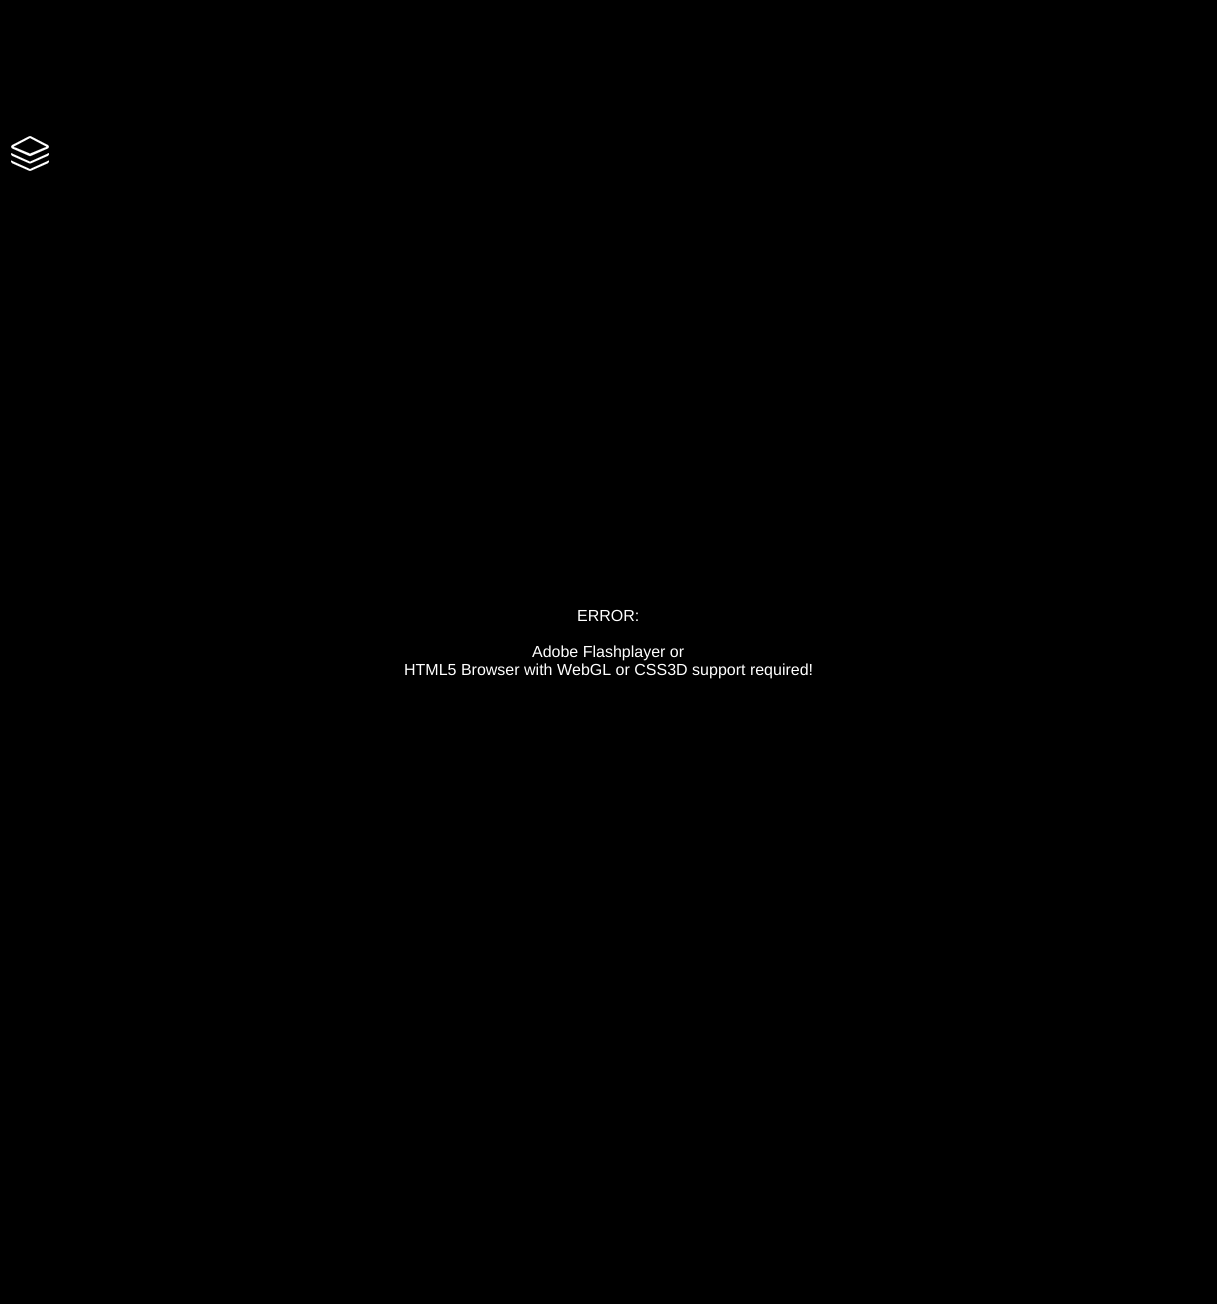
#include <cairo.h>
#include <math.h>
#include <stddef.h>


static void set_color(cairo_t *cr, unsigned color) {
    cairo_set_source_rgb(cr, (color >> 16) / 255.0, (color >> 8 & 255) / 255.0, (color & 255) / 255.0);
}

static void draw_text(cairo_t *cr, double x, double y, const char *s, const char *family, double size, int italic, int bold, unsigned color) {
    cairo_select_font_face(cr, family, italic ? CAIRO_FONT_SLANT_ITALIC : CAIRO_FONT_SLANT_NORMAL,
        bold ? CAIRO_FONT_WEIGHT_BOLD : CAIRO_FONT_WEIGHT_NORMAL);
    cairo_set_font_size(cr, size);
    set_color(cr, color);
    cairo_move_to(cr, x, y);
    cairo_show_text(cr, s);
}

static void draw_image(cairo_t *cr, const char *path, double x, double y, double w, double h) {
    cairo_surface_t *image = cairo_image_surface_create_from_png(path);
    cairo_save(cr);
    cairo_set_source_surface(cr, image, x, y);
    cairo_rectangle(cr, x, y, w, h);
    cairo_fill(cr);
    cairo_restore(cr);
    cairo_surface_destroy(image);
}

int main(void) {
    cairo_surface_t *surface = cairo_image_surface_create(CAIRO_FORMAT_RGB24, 1217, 1304);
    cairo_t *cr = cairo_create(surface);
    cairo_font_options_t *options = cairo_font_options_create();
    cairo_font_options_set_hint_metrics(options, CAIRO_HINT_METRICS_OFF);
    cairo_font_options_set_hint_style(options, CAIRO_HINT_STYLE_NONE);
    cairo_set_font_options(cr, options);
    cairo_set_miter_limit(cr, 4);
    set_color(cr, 0x000000);
    cairo_paint(cr);
    draw_image(cr, "assets/img1.png", 11, 136, 38, 35);
    draw_text(cr, 577, 621, "ERROR:", "Liberation Sans", 16, 0, 0, 0xFFFFFF);
    draw_text(cr, 532, 657, "Adobe Flashplayer or", "Liberation Sans", 16, 0, 0, 0xFFFFFF);
    draw_text(cr, 404, 675, "HTML5 Browser with WebGL or CSS3D support required!", "Liberation Sans", 16, 0, 0, 0xFFFFFF);
    cairo_surface_write_to_png(surface, "output.png");
    cairo_font_options_destroy(options);
    cairo_destroy(cr);
    cairo_surface_destroy(surface);
    return 0;
}
